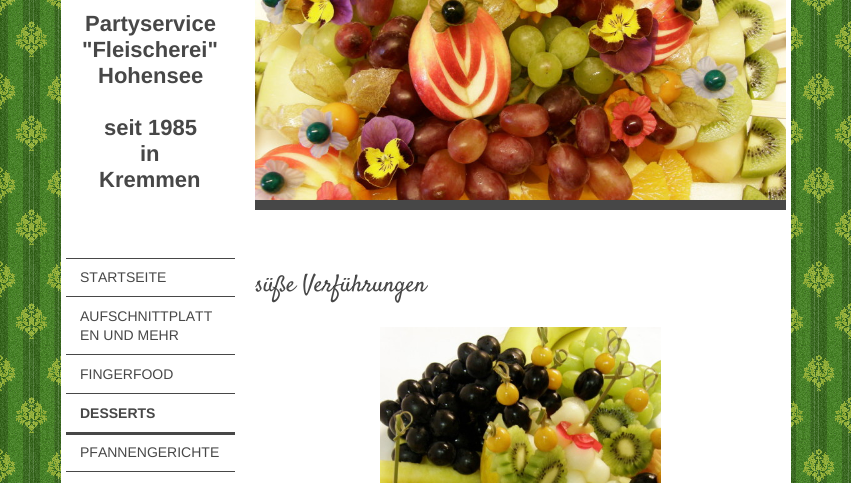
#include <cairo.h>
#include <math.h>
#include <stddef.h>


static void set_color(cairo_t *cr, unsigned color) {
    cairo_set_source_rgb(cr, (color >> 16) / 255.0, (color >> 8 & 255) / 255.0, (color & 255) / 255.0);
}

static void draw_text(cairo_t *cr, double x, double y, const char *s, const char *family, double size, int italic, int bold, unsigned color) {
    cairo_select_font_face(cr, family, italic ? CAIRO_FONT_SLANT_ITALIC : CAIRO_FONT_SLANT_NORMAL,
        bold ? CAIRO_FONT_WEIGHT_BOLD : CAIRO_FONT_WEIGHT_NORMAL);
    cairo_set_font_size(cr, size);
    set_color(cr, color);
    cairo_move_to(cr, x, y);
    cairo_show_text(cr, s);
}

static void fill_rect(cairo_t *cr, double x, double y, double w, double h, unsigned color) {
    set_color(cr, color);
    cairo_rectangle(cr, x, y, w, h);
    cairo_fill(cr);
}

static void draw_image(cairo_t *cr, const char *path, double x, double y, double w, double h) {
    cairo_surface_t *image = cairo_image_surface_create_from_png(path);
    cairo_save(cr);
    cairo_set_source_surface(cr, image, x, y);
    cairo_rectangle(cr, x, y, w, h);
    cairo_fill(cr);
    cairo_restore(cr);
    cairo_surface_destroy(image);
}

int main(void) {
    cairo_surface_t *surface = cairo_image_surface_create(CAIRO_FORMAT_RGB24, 851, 483);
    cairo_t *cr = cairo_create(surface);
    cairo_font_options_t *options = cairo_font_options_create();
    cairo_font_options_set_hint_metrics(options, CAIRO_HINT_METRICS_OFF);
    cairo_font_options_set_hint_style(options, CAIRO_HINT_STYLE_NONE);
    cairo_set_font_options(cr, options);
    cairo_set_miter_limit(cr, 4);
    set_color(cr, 0xFFFFFF);
    cairo_paint(cr);
    draw_image(cr, "assets/img1.png", 0, 0, 851, 483);
    fill_rect(cr, 61, 0, 730, 483, 0xFFFFFF);
    draw_text(cr, 85, 31, "Partyservice", "Liberation Sans", 22, 0, 1, 0x474747);
    draw_text(cr, 82, 57, "\"Fleischerei\"", "Liberation Sans", 22, 0, 1, 0x474747);
    draw_text(cr, 98, 83, "Hohensee", "Liberation Sans", 22, 0, 1, 0x474747);
    draw_text(cr, 104, 135, "seit 1985", "Liberation Sans", 22, 0, 1, 0x474747);
    draw_text(cr, 140, 161, "in", "Liberation Sans", 22, 0, 1, 0x474747);
    draw_text(cr, 99, 187, "Kremmen", "Liberation Sans", 22, 0, 1, 0x474747);
    fill_rect(cr, 66, 258, 169, 1, 0x474747);
    fill_rect(cr, 66, 296, 169, 1, 0x474747);
    draw_text(cr, 80, 282, "STARTSEITE", "Liberation Sans", 14, 0, 0, 0x474747);
    fill_rect(cr, 66, 354, 169, 1, 0x474747);
    draw_text(cr, 80, 321, "AUFSCHNITTPLATT", "Liberation Sans", 14, 0, 0, 0x474747);
    draw_text(cr, 80, 340, "EN UND MEHR", "Liberation Sans", 14, 0, 0, 0x474747);
    fill_rect(cr, 66, 393, 169, 1, 0x474747);
    draw_text(cr, 80, 379, "FINGERFOOD", "Liberation Sans", 14, 0, 0, 0x474747);
    fill_rect(cr, 66, 432, 169, 3, 0x474747);
    draw_text(cr, 80, 418, "DESSERTS", "Liberation Sans", 14, 0, 1, 0x474747);
    fill_rect(cr, 66, 471, 169, 1, 0x474747);
    draw_text(cr, 80, 457, "PFANNENGERICHTE", "Liberation Sans", 14, 0, 0, 0x474747);
    fill_rect(cr, 255, 200, 531, 10, 0x474747);
    draw_image(cr, "assets/img2.png", 255, 0, 531, 200);
    draw_text(cr, 255, 291, "süße Verführungen", "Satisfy", 24, 0, 0, 0x474747);
    draw_image(cr, "assets/img3.png", 380, 327, 281, 156);
    cairo_surface_write_to_png(surface, "output.png");
    cairo_font_options_destroy(options);
    cairo_destroy(cr);
    cairo_surface_destroy(surface);
    return 0;
}
